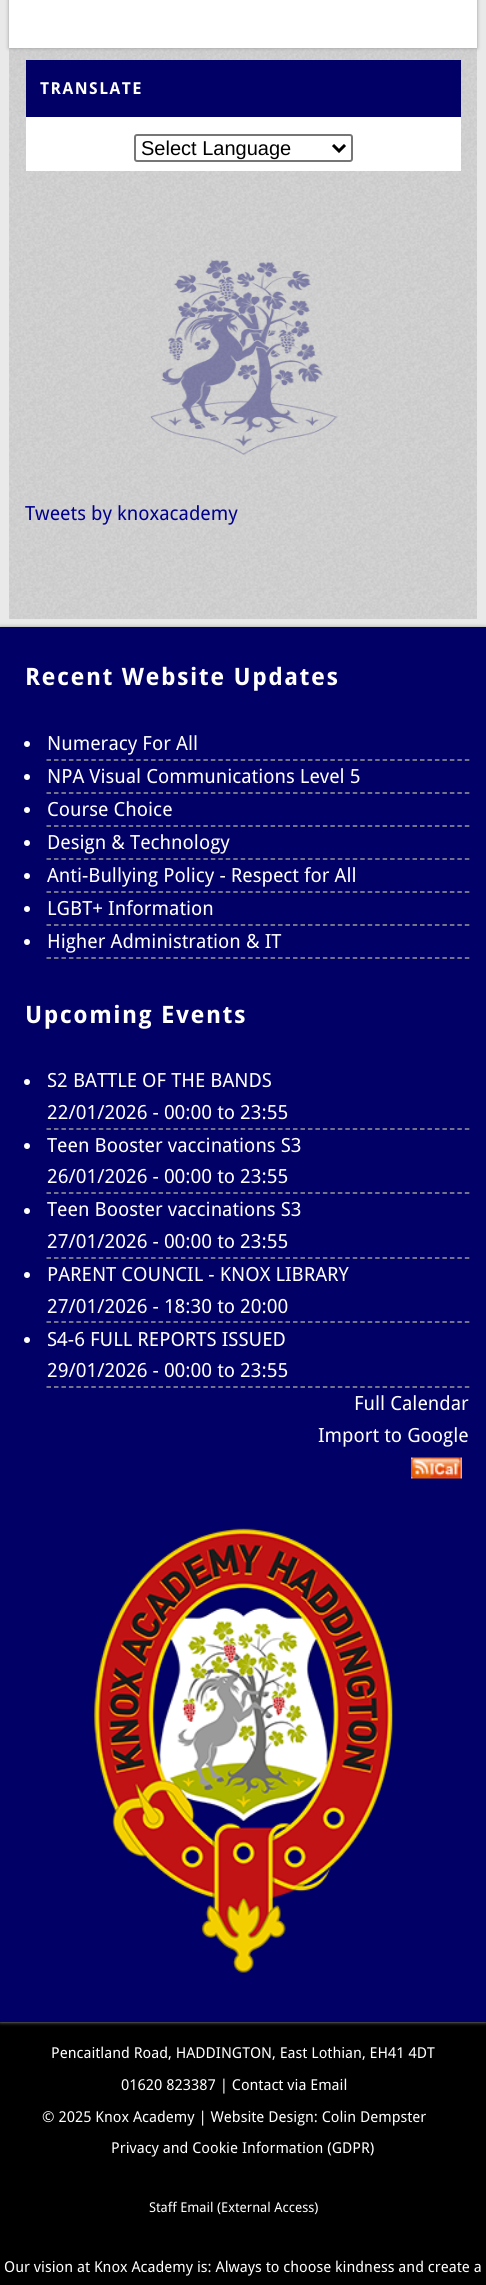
#include <cairo.h>
#include <math.h>
#include <stddef.h>


static void set_color(cairo_t *cr, unsigned color) {
    cairo_set_source_rgb(cr, (color >> 16) / 255.0, (color >> 8 & 255) / 255.0, (color & 255) / 255.0);
}

static void draw_text(cairo_t *cr, double x, double y, const char *s, const char *family, double size, int italic, int bold, unsigned color) {
    cairo_select_font_face(cr, family, italic ? CAIRO_FONT_SLANT_ITALIC : CAIRO_FONT_SLANT_NORMAL,
        bold ? CAIRO_FONT_WEIGHT_BOLD : CAIRO_FONT_WEIGHT_NORMAL);
    cairo_set_font_size(cr, size);
    set_color(cr, color);
    cairo_move_to(cr, x, y);
    cairo_show_text(cr, s);
}

static void draw_spaced(cairo_t *cr, double x, double y, const char *s, double letter, double word) {
    cairo_move_to(cr, x, y);
    while (*s) {
        char ch[5] = {0};
        int n = 0;
        do ch[n++] = *s++; while ((*s & 0xC0) == 0x80);
        cairo_show_text(cr, ch);
        cairo_rel_move_to(cr, letter + word * (*ch == ' '), 0);
    }
}

static void fill_rect(cairo_t *cr, double x, double y, double w, double h, unsigned color) {
    set_color(cr, color);
    cairo_rectangle(cr, x, y, w, h);
    cairo_fill(cr);
}

static void rounded_rect(cairo_t *cr, double x, double y, double w, double h, double r) {
    cairo_new_sub_path(cr);
    cairo_arc(cr, x + w - r, y + h - r, r, 0, M_PI / 2);
    cairo_arc(cr, x + r, y + h - r, r, M_PI / 2, M_PI);
    cairo_arc(cr, x + r, y + r, r, M_PI, 1.5 * M_PI);
    cairo_arc(cr, x + w - r, y + r, r, 1.5 * M_PI, 2 * M_PI);
    cairo_close_path(cr);
}

static void draw_shadow(cairo_t *cr, double x, double y, double w, double h, double r, double blur, double alpha) {
    cairo_push_group_with_content(cr, CAIRO_CONTENT_ALPHA);
    cairo_set_operator(cr, CAIRO_OPERATOR_SOURCE);
    for (int i = 15; i >= -15 && fmin(w, h) + blur * i / 3 > 0; i -= 2) {
        double e = blur * i / 6;
        cairo_set_source_rgba(cr, 0, 0, 0, alpha * erfc((i - 1) / 8.5) / 2);
        rounded_rect(cr, x - e, y - e, w + 2 * e, h + 2 * e, fmax(0, fmin(r + e + blur * .6, fmin(w, h) / 2 + e)));
        cairo_fill(cr);
    }
    cairo_pattern_t *soft = cairo_pop_group(cr);
    cairo_mask(cr, soft);
    cairo_pattern_destroy(soft);
}

static void draw_image(cairo_t *cr, const char *path, double x, double y, double w, double h) {
    cairo_surface_t *image = cairo_image_surface_create_from_png(path);
    cairo_save(cr);
    cairo_set_source_surface(cr, image, x, y);
    cairo_rectangle(cr, x, y, w, h);
    cairo_fill(cr);
    cairo_restore(cr);
    cairo_surface_destroy(image);
}

int main(void) {
    cairo_surface_t *surface = cairo_image_surface_create(CAIRO_FORMAT_RGB24, 486, 2285);
    cairo_t *cr = cairo_create(surface);
    cairo_font_options_t *options = cairo_font_options_create();
    cairo_font_options_set_hint_metrics(options, CAIRO_HINT_METRICS_OFF);
    cairo_font_options_set_hint_style(options, CAIRO_HINT_STYLE_NONE);
    cairo_set_font_options(cr, options);
    cairo_set_miter_limit(cr, 4);
    set_color(cr, 0xE9E9E9);
    cairo_paint(cr);
    draw_image(cr, "assets/img1.png", 9, 48, 468, 571);
    set_color(cr, 0x999999);
    draw_shadow(cr, 9, -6, 468, 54, 0, 2, 1);
    fill_rect(cr, 9, 0, 468, 48, 0xFFFFFF);
    fill_rect(cr, 26, 117, 435, 54, 0xFFFFFF);
    fill_rect(cr, 26, 60, 435, 57, 0x000066);
    cairo_select_font_face(cr, "Droid Sans", CAIRO_FONT_SLANT_NORMAL, CAIRO_FONT_WEIGHT_BOLD);
    cairo_set_font_size(cr, 16.5);
    set_color(cr, 0xFFFFFF);
    draw_spaced(cr, 40, 94, "TRANSLATE", 1.5, 0);
    rounded_rect(cr, 135, 135, 217, 26, 2);
    set_color(cr, 0x767676);
    cairo_stroke(cr);
    cairo_new_path(cr);
    cairo_move_to(cr, 333, 145);
    cairo_line_to(cr, 339, 151);
    cairo_line_to(cr, 345, 145);
    set_color(cr, 0x000000);
    cairo_set_line_width(cr, 3);
    cairo_stroke(cr);
    draw_text(cr, 141, 155, "Select Language", "Liberation Sans", 20, 0, 0, 0x000000);
    draw_image(cr, "assets/img2.png", 150, 259, 188, 196);
    draw_text(cr, 25, 520, "Tweets by knoxacademy", "Droid Sans", 19.5, 0, 0, 0x00008B);
    fill_rect(cr, 0, 2022, 486, 263, 0x000000);
    set_color(cr, 0x999999);
    draw_shadow(cr, 0, 627, 486, 1395, 0, 2, 1);
    fill_rect(cr, 0, 627, 486, 1395, 0x000066);
    cairo_select_font_face(cr, "Droid Sans", CAIRO_FONT_SLANT_NORMAL, CAIRO_FONT_WEIGHT_BOLD);
    cairo_set_font_size(cr, 24);
    set_color(cr, 0xFFFFFF);
    draw_spaced(cr, 25, 685, "Recent Website Updates", 1.5, 0);
    cairo_new_path(cr);
    cairo_move_to(cr, 46.5, 760);
    cairo_line_to(cr, 469.5, 760);
    set_color(cr, 0x999999);
    cairo_set_line_width(cr, 1.5);
    cairo_set_dash(cr, (double[]){4.5, 2.97}, 2, 0);
    cairo_stroke(cr);
    set_color(cr, 0xFFFFFF);
    cairo_arc(cr, 27, 744, 3, 0, 2 * M_PI);
    cairo_fill(cr);
    draw_text(cr, 47, 750, "Numeracy For All", "Droid Sans", 19.5, 0, 0, 0xFFFFFF);
    cairo_new_path(cr);
    cairo_move_to(cr, 46.5, 793);
    cairo_line_to(cr, 469.5, 793);
    set_color(cr, 0x999999);
    cairo_stroke(cr);
    set_color(cr, 0xFFFFFF);
    cairo_arc(cr, 27, 777, 3, 0, 2 * M_PI);
    cairo_fill(cr);
    draw_text(cr, 47, 783, "NPA Visual Communications Level 5", "Droid Sans", 19.5, 0, 0, 0xFFFFFF);
    cairo_new_path(cr);
    cairo_move_to(cr, 46.5, 826);
    cairo_line_to(cr, 469.5, 826);
    set_color(cr, 0x999999);
    cairo_stroke(cr);
    set_color(cr, 0xFFFFFF);
    cairo_arc(cr, 27, 810, 3, 0, 2 * M_PI);
    cairo_fill(cr);
    draw_text(cr, 47, 816, "Course Choice", "Droid Sans", 19.5, 0, 0, 0xFFFFFF);
    cairo_new_path(cr);
    cairo_move_to(cr, 46.5, 859);
    cairo_line_to(cr, 469.5, 859);
    set_color(cr, 0x999999);
    cairo_stroke(cr);
    set_color(cr, 0xFFFFFF);
    cairo_arc(cr, 27, 843, 3, 0, 2 * M_PI);
    cairo_fill(cr);
    draw_text(cr, 47, 849, "Design & Technology", "Droid Sans", 19.5, 0, 0, 0xFFFFFF);
    cairo_new_path(cr);
    cairo_move_to(cr, 46.5, 892);
    cairo_line_to(cr, 469.5, 892);
    set_color(cr, 0x999999);
    cairo_stroke(cr);
    set_color(cr, 0xFFFFFF);
    cairo_arc(cr, 27, 876, 3, 0, 2 * M_PI);
    cairo_fill(cr);
    draw_text(cr, 47, 882, "Anti-Bullying Policy - Respect for All", "Droid Sans", 19.5, 0, 0, 0xFFFFFF);
    cairo_new_path(cr);
    cairo_move_to(cr, 46.5, 925);
    cairo_line_to(cr, 469.5, 925);
    set_color(cr, 0x999999);
    cairo_stroke(cr);
    set_color(cr, 0xFFFFFF);
    cairo_arc(cr, 27, 909, 3, 0, 2 * M_PI);
    cairo_fill(cr);
    draw_text(cr, 47, 915, "LGBT+ Information", "Droid Sans", 19.5, 0, 0, 0xFFFFFF);
    cairo_new_path(cr);
    cairo_move_to(cr, 46.5, 958);
    cairo_line_to(cr, 469.5, 958);
    set_color(cr, 0x999999);
    cairo_stroke(cr);
    set_color(cr, 0xFFFFFF);
    cairo_arc(cr, 27, 942, 3, 0, 2 * M_PI);
    cairo_fill(cr);
    draw_text(cr, 47, 948, "Higher Administration & IT", "Droid Sans", 19.5, 0, 0, 0xFFFFFF);
    cairo_select_font_face(cr, "Droid Sans", CAIRO_FONT_SLANT_NORMAL, CAIRO_FONT_WEIGHT_BOLD);
    cairo_set_font_size(cr, 24);
    draw_spaced(cr, 25, 1023, "Upcoming Events", 1.5, 0);
    cairo_new_path(cr);
    cairo_move_to(cr, 46.5, 1129);
    cairo_line_to(cr, 469.5, 1129);
    set_color(cr, 0x999999);
    cairo_stroke(cr);
    set_color(cr, 0xFFFFFF);
    cairo_arc(cr, 27, 1082, 3, 0, 2 * M_PI);
    cairo_fill(cr);
    draw_text(cr, 47, 1087, "S2 BATTLE OF THE BANDS", "Droid Sans", 19.5, 0, 0, 0xFFFFFF);
    draw_text(cr, 47, 1119, "22/01/2026 - 00:00 to 23:55", "Droid Sans", 19.5, 0, 0, 0xFFFFFF);
    cairo_new_path(cr);
    cairo_move_to(cr, 46.5, 1193);
    cairo_line_to(cr, 469.5, 1193);
    set_color(cr, 0x999999);
    cairo_stroke(cr);
    set_color(cr, 0xFFFFFF);
    cairo_arc(cr, 27, 1146, 3, 0, 2 * M_PI);
    cairo_fill(cr);
    draw_text(cr, 47, 1152, "Teen Booster vaccinations S3", "Droid Sans", 19.5, 0, 0, 0xFFFFFF);
    draw_text(cr, 47, 1183, "26/01/2026 - 00:00 to 23:55", "Droid Sans", 19.5, 0, 0, 0xFFFFFF);
    cairo_new_path(cr);
    cairo_move_to(cr, 46.5, 1258);
    cairo_line_to(cr, 469.5, 1258);
    set_color(cr, 0x999999);
    cairo_stroke(cr);
    set_color(cr, 0xFFFFFF);
    cairo_arc(cr, 27, 1211, 3, 0, 2 * M_PI);
    cairo_fill(cr);
    draw_text(cr, 47, 1216, "Teen Booster vaccinations S3", "Droid Sans", 19.5, 0, 0, 0xFFFFFF);
    draw_text(cr, 47, 1248, "27/01/2026 - 00:00 to 23:55", "Droid Sans", 19.5, 0, 0, 0xFFFFFF);
    cairo_new_path(cr);
    cairo_move_to(cr, 46.5, 1322);
    cairo_line_to(cr, 469.5, 1322);
    set_color(cr, 0x999999);
    cairo_stroke(cr);
    set_color(cr, 0xFFFFFF);
    cairo_arc(cr, 27, 1275, 3, 0, 2 * M_PI);
    cairo_fill(cr);
    draw_text(cr, 47, 1281, "PARENT COUNCIL - KNOX LIBRARY", "Droid Sans", 19.5, 0, 0, 0xFFFFFF);
    draw_text(cr, 47, 1313, "27/01/2026 - 18:30 to 20:00", "Droid Sans", 19.5, 0, 0, 0xFFFFFF);
    cairo_new_path(cr);
    cairo_move_to(cr, 46.5, 1387);
    cairo_line_to(cr, 469.5, 1387);
    set_color(cr, 0x999999);
    cairo_stroke(cr);
    set_color(cr, 0xFFFFFF);
    cairo_arc(cr, 27, 1340, 3, 0, 2 * M_PI);
    cairo_fill(cr);
    draw_text(cr, 47, 1346, "S4-6 FULL REPORTS ISSUED", "Droid Sans", 19.5, 0, 0, 0xFFFFFF);
    draw_text(cr, 47, 1377, "29/01/2026 - 00:00 to 23:55", "Droid Sans", 19.5, 0, 0, 0xFFFFFF);
    draw_text(cr, 354, 1410, "Full Calendar", "Droid Sans", 19.5, 0, 0, 0xFFFFFF);
    draw_text(cr, 318, 1442, "Import to Google", "Droid Sans", 19.5, 0, 0, 0xFFFFFF);
    draw_image(cr, "assets/img3.png", 411, 1457, 51, 22);
    draw_image(cr, "assets/img4.png", 94, 1528, 299, 445);
    draw_text(cr, 51, 2058, "Pencaitland Road, HADDINGTON, East Lothian, EH41 4DT", "Droid Sans", 15, 0, 0, 0xFFFFFF);
    draw_text(cr, 121, 2090, "01620 823387 | Contact via Email", "Droid Sans", 15, 0, 0, 0xFFFFFF);
    draw_text(cr, 42, 2122, "© 2025 Knox Academy | Website Design: Colin Dempster", "Droid Sans", 15, 0, 0, 0xFFFFFF);
    draw_text(cr, 111, 2153, "Privacy and Cookie Information (GDPR)", "Droid Sans", 15, 0, 0, 0xFFFFFF);
    draw_text(cr, 149, 2212, "Staff Email (External Access)", "Droid Sans", 13.5, 0, 0, 0xFFFFFF);
    draw_text(cr, 4, 2272, "Our vision at Knox Academy is: Always to choose kindness and create a", "Droid Sans", 15, 0, 0, 0xFFFFFF);
    cairo_surface_write_to_png(surface, "output.png");
    cairo_font_options_destroy(options);
    cairo_destroy(cr);
    cairo_surface_destroy(surface);
    return 0;
}
